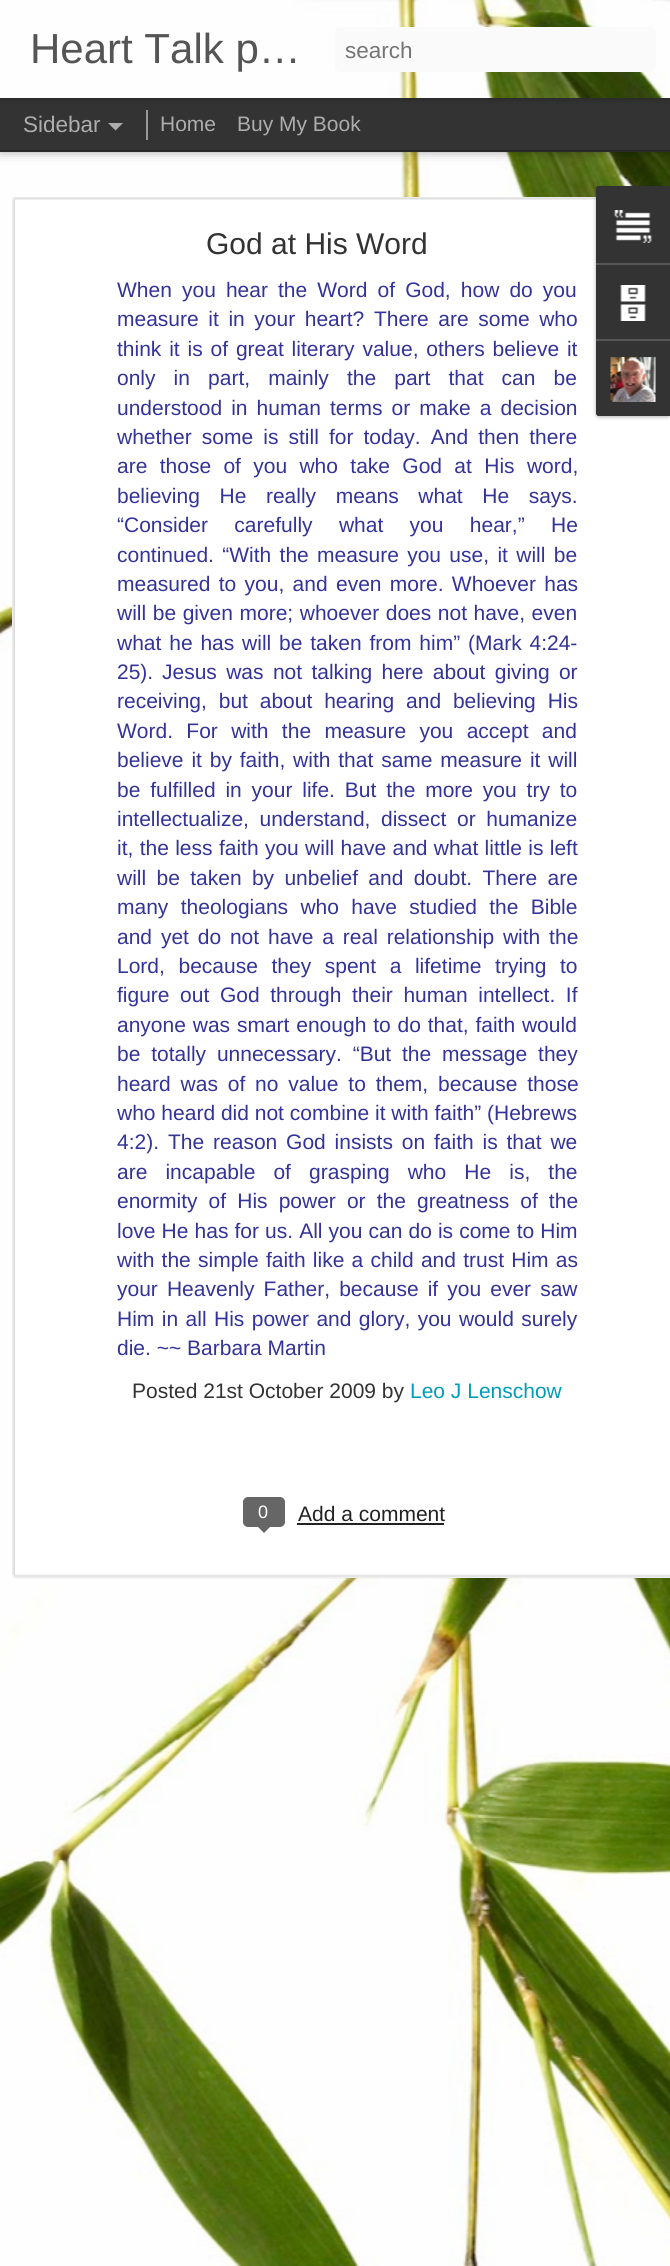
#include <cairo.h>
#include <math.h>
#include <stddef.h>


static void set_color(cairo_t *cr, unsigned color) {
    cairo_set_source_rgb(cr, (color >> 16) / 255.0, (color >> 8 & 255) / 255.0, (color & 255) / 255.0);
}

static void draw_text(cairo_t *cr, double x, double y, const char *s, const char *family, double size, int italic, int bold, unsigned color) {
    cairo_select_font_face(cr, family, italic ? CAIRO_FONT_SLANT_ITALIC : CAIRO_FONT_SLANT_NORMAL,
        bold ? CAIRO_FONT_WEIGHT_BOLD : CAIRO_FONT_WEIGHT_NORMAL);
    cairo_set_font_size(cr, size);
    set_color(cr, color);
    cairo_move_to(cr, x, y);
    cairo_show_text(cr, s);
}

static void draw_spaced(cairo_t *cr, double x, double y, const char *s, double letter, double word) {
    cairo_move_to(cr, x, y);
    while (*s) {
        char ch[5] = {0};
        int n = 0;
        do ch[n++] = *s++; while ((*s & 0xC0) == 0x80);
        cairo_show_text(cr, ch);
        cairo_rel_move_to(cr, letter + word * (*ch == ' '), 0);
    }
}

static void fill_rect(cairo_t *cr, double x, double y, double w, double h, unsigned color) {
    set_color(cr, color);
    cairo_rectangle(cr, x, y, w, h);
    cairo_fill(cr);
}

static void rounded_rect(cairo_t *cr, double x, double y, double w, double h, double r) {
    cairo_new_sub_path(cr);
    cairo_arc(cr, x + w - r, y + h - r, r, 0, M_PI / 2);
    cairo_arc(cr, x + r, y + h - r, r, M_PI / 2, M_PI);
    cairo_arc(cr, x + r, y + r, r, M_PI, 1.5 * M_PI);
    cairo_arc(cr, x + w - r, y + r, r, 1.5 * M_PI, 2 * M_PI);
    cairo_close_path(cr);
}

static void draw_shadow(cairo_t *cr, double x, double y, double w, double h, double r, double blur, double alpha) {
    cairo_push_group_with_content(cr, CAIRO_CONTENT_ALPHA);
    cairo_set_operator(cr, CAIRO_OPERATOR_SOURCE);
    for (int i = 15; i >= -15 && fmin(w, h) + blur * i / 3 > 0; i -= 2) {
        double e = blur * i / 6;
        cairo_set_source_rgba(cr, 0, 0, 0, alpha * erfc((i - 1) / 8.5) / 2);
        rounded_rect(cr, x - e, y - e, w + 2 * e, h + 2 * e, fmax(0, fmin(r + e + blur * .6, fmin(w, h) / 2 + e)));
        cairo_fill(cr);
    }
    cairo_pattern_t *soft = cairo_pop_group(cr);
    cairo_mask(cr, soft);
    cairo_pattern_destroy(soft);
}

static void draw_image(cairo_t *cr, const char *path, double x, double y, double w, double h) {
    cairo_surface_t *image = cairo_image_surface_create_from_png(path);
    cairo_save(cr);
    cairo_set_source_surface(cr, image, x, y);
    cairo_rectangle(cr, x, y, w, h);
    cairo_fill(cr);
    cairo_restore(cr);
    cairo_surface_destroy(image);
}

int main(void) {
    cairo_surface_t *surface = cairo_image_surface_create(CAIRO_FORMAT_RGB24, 670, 2266);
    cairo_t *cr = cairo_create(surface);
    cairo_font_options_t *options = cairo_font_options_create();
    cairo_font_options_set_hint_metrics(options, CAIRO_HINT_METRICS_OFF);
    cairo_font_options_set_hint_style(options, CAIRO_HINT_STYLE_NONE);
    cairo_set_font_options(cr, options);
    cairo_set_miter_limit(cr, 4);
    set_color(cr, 0x333333);
    cairo_paint(cr);
    draw_image(cr, "assets/img2.png", 0, 152, 670, 2114);
    set_color(cr, 0x000000);
    draw_shadow(cr, 0, 98, 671, 52, 0, 6, 0.5);
    fill_rect(cr, 0, 98, 670, 52, 0x333333);
    fill_rect(cr, 146, 110, 2, 30, 0x999999);
    set_color(cr, 0x000000);
    draw_shadow(cr, 0, 0, 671, 98, 0, 4, 0.3);
    draw_image(cr, "assets/img1.png", 0, 0, 670, 98);
    draw_text(cr, 30, 63, "Heart Talk p…", "Liberation Sans", 42, 0, 0, 0x555555);
    set_color(cr, 0xFAFAFA);
    rounded_rect(cr, 335, 27, 321, 45, 5);
    cairo_fill(cr);
    draw_text(cr, 345, 58, "search", "Liberation Sans", 22.5, 0, 0, 0x757575);
    draw_text(cr, 23, 132, "Sidebar", "Liberation Sans", 22.5, 0, 0, 0xADADAD);
    cairo_new_path(cr);
    cairo_move_to(cr, 108, 123);
    cairo_line_to(cr, 123, 123);
    cairo_line_to(cr, 115.5, 130.5);
    cairo_close_path(cr);
    cairo_fill(cr);
    draw_text(cr, 160, 131, "Home", "Liberation Sans", 21, 0, 0, 0xADADAD);
    draw_text(cr, 237, 131, "Buy My Book", "Liberation Sans", 21, 0, 0, 0xADADAD);
    fill_rect(cr, 12, 197, 658, 1381, 0xFFFFFF);
    draw_image(cr, "assets/img3.png", 12, 197, 658, 1382);
    draw_text(cr, 206, 254, "God at His Word", "Liberation Sans", 30, 0, 0, 0x333333);
    cairo_set_font_size(cr, 21);
    set_color(cr, 0x333399);
    draw_spaced(cr, 117, 297, "When you hear the Word of God, how do you", 0, 4.25);
    draw_spaced(cr, 117, 326, "measure it in your heart? There are some who", 0, 3.75);
    draw_spaced(cr, 117, 356, "think it is of great literary value, others believe it", 0, 2);
    draw_spaced(cr, 117, 385, "only in part, mainly the part that can be", 0, 12.25);
    draw_spaced(cr, 117, 415, "understood in human terms or make a decision", 0, 3.25);
    draw_spaced(cr, 117, 444, "whether some is still for today. And then there", 0, 4.25);
    draw_spaced(cr, 117, 473, "are those of you who take God at His word,", 0, 6.5);
    draw_spaced(cr, 117, 503, "believing He really means what He says.", 0, 13.75);
    draw_spaced(cr, 117, 532, "“Consider carefully what you hear,” He", 0, 20.5);
    draw_spaced(cr, 117, 562, "continued. “With the measure you use, it will be", 0, 2.5);
    draw_spaced(cr, 117, 591, "measured to you, and even more. Whoever has", 0, 2.5);
    draw_spaced(cr, 117, 620, "will be given more; whoever does not have, even", 0, 0.75);
    draw_spaced(cr, 117, 650, "what he has will be taken from him” (Mark 4:24-", 0, 2);
    draw_text(cr, 117, 679, "25).", "Liberation Sans", 21, 0, 0, 0x333399);
    draw_spaced(cr, 162, 679, "Jesus was not talking here about giving or", 0, 3.5);
    draw_spaced(cr, 117, 708, "receiving, but about hearing and believing His", 0, 6);
    draw_spaced(cr, 117, 738, "Word. For with the measure you accept and", 0, 7.5);
    draw_spaced(cr, 117, 767, "believe it by faith, with that same measure it will", 0, 2);
    draw_spaced(cr, 117, 797, "be fulfilled in your life. But the more you try to", 0, 4);
    draw_spaced(cr, 117, 826, "intellectualize, understand, dissect or humanize", 0, 4.75);
    draw_spaced(cr, 117, 855, "it, the less faith you will have and what little is left", 0, 0.5);
    draw_spaced(cr, 117, 885, "will be taken by unbelief and doubt. There are", 0, 4.5);
    draw_spaced(cr, 117, 914, "many theologians who have studied the Bible", 0, 6.5);
    draw_spaced(cr, 117, 944, "and yet do not have a real relationship with the", 0, 3);
    draw_spaced(cr, 117, 973, "Lord, because they spent a lifetime trying to", 0, 7.75);
    draw_spaced(cr, 117, 1002, "figure out God through their human intellect. If", 0, 4.75);
    draw_spaced(cr, 117, 1032, "anyone was smart enough to do that, faith would", 0, 1);
    draw_spaced(cr, 117, 1061, "be totally unnecessary. “But the message they", 0, 5);
    draw_spaced(cr, 117, 1091, "heard was of no value to them, because those", 0, 4);
    draw_text(cr, 117, 1120, "who heard did not combine it with faith” (Hebrews", "Liberation Sans", 21, 0, 0, 0x333399);
    draw_text(cr, 117, 1149, "4:2).", "Liberation Sans", 21, 0, 0, 0x333399);
    draw_spaced(cr, 168, 1149, "The reason God insists on faith is that we", 0, 3);
    draw_spaced(cr, 117, 1179, "are incapable of grasping who He is, the", 0, 12.25);
    draw_spaced(cr, 117, 1208, "enormity of His power or the greatness of the", 0, 5.25);
    draw_spaced(cr, 117, 1238, "love He has for us. All you can do is come to Him", 0, 0.25);
    draw_spaced(cr, 117, 1267, "with the simple faith like a child and trust Him as", 0, 1.4);
    draw_spaced(cr, 117, 1296, "your Heavenly Father, because if you ever saw", 0, 3.25);
    draw_spaced(cr, 117, 1326, "Him in all His power and glory, you would surely", 0, 1.6);
    draw_text(cr, 117, 1355, "die. ~~ Barbara Martin", "Liberation Sans", 21, 0, 0, 0x333399);
    draw_text(cr, 132, 1398, "Posted 21st October 2009 by", "Liberation Sans", 21, 0, 0, 0x333333);
    draw_text(cr, 410, 1398, "Leo J Lenschow", "Liberation Sans", 21, 0, 0, 0x009DB8);
    set_color(cr, 0x666666);
    rounded_rect(cr, 244, 1498, 40, 28, 4);
    cairo_fill_preserve(cr);
    cairo_stroke(cr);
    draw_text(cr, 258, 1518, "0", "Liberation Sans", 18, 0, 0, 0xFFFFFF);
    set_color(cr, 0x666666);
    cairo_new_path(cr);
    cairo_move_to(cr, 256.5, 1525.5);
    cairo_line_to(cr, 271.5, 1525.5);
    cairo_line_to(cr, 264, 1533);
    cairo_close_path(cr);
    cairo_fill(cr);
    draw_text(cr, 298, 1521, "Add a comment", "Liberation Sans", 21, 0, 0, 0x222222);
    fill_rect(cr, 297, 1523, 147, 2, 0x222222);
    set_color(cr, 0x000000);
    draw_shadow(cr, 596, 188, 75, 229, 3, 2, 0.3);
    set_color(cr, 0x333333);
    cairo_new_path(cr);
    cairo_move_to(cr, 599, 186);
    cairo_line_to(cr, 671, 186);
    cairo_line_to(cr, 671, 416);
    cairo_line_to(cr, 599, 416);
    cairo_curve_to(cr, 597.5, 416, 596, 414.5, 596, 413);
    cairo_line_to(cr, 596, 189);
    cairo_curve_to(cr, 596, 187.5, 597.5, 186, 599, 186);
    cairo_close_path(cr);
    cairo_fill(cr);
    cairo_new_path(cr);
    cairo_move_to(cr, 599, 186);
    cairo_line_to(cr, 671, 186);
    cairo_line_to(cr, 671, 263);
    cairo_line_to(cr, 596, 263);
    cairo_line_to(cr, 596, 189);
    cairo_curve_to(cr, 596, 187.5, 597.5, 186, 599, 186);
    cairo_close_path(cr);
    cairo_fill(cr);
    draw_image(cr, "assets/img4.png", 614, 210, 38, 33);
    fill_rect(cr, 596, 263, 74, 2, 0x585858);
    draw_image(cr, "assets/img5.png", 620, 285, 26, 36);
    set_color(cr, 0x333333);
    cairo_new_path(cr);
    cairo_move_to(cr, 596, 339);
    cairo_line_to(cr, 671, 339);
    cairo_line_to(cr, 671, 416);
    cairo_line_to(cr, 599, 416);
    cairo_curve_to(cr, 597.5, 416, 596, 414.5, 596, 413);
    cairo_close_path(cr);
    cairo_fill(cr);
    fill_rect(cr, 596, 339, 74, 2, 0x585858);
    draw_image(cr, "assets/img6.png", 610, 357, 46, 45);
    cairo_surface_write_to_png(surface, "output.png");
    cairo_font_options_destroy(options);
    cairo_destroy(cr);
    cairo_surface_destroy(surface);
    return 0;
}
